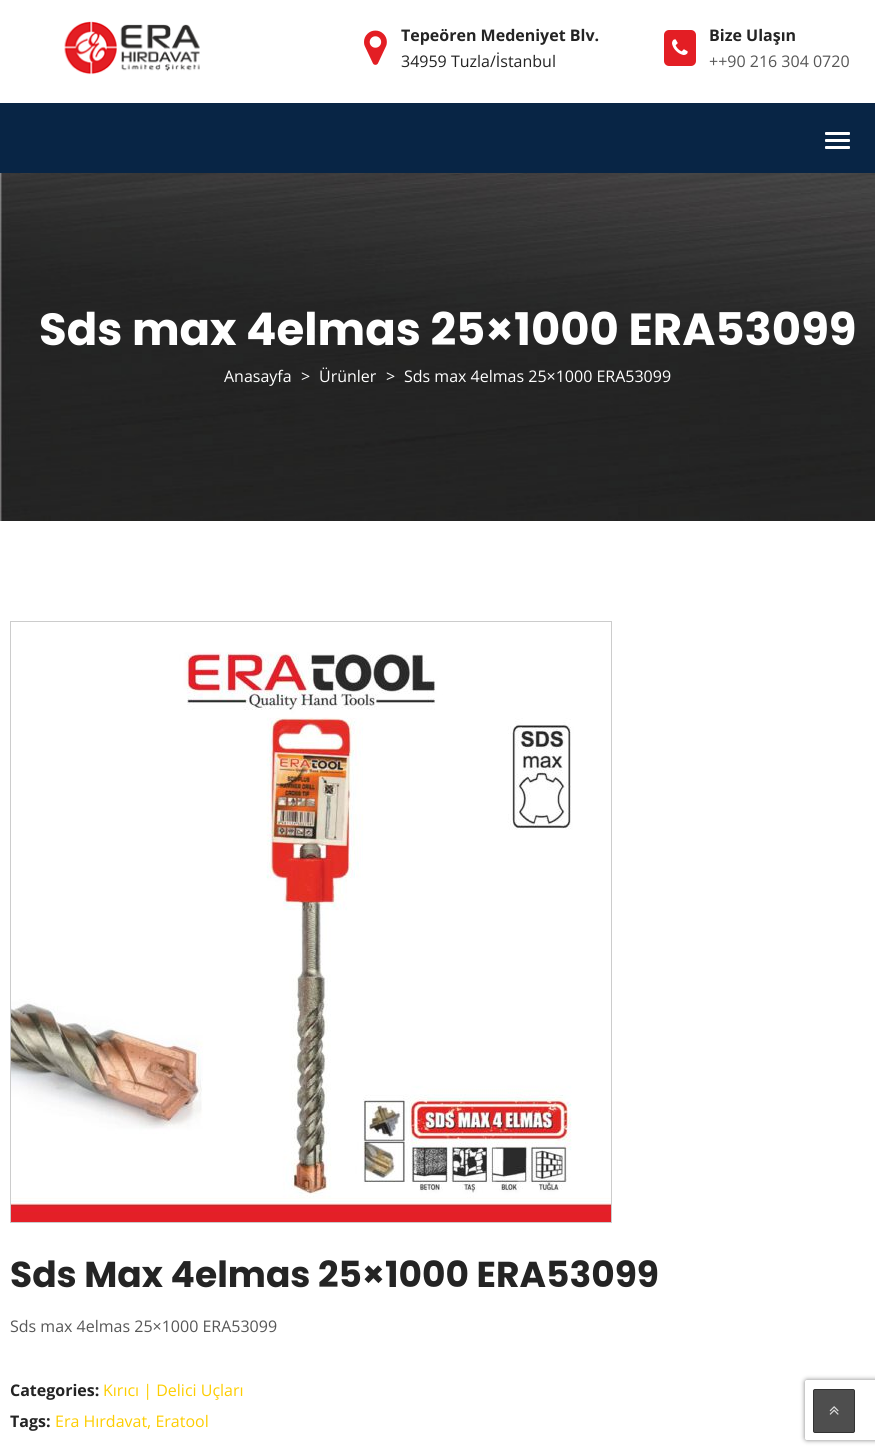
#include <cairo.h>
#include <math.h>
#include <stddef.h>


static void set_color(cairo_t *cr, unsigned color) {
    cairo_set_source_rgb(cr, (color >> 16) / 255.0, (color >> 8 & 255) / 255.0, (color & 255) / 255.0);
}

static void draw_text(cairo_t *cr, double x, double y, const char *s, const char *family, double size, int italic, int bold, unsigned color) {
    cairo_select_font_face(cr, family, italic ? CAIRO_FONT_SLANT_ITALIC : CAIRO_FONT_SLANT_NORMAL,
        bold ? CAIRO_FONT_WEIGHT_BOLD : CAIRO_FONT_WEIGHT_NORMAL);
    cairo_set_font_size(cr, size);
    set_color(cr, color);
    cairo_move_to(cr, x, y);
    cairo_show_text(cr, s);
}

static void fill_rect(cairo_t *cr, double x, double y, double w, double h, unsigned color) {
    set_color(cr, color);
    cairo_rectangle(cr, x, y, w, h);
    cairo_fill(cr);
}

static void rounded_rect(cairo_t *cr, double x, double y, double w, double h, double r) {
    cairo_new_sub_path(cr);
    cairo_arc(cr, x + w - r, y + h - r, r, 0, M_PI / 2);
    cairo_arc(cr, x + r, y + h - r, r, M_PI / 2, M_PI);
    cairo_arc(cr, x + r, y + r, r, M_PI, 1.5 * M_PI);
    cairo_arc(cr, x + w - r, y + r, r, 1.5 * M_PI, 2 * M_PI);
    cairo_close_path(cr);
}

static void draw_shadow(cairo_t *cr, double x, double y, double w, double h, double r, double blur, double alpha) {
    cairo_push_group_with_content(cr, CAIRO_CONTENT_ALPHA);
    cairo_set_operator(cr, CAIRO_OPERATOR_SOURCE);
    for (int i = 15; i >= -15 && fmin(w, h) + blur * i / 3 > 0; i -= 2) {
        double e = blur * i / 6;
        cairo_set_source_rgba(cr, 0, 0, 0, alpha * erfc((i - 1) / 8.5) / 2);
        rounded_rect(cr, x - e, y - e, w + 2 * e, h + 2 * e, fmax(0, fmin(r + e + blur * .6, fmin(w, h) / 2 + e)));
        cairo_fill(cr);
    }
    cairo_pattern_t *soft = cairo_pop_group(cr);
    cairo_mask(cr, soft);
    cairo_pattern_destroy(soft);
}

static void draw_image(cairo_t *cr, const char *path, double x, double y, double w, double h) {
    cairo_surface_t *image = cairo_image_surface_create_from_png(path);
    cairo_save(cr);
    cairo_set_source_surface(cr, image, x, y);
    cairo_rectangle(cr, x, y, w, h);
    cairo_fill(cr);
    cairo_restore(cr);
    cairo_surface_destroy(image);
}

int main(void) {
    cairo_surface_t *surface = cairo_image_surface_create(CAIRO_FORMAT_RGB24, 875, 1454);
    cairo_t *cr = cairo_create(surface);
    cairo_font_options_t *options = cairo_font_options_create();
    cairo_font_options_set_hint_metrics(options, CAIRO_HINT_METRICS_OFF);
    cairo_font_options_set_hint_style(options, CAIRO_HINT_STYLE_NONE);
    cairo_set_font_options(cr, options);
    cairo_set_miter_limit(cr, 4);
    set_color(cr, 0xFFFFFF);
    cairo_paint(cr);
    draw_image(cr, "assets/img1.png", 64, 20, 136, 55);
    draw_image(cr, "assets/img2.png", 364, 30, 23, 35);
    draw_text(cr, 401, 41, "Tepeören Medeniyet Blv.", "Open Sans", 16, 0, 1, 0x242424);
    draw_text(cr, 401, 67, "34959 Tuzla/İstanbul", "Open Sans", 16, 0, 0, 0x242424);
    set_color(cr, 0xE31E24);
    rounded_rect(cr, 664, 30, 32, 36, 5);
    cairo_fill(cr);
    draw_image(cr, "assets/img3.png", 672, 39, 16, 16);
    draw_text(cr, 709, 41, "Bize Ulaşın", "Open Sans", 16, 0, 1, 0x242424);
    draw_text(cr, 709, 67, "++90 216 304 0720", "Open Sans", 16, 0, 0, 0x575757);
    fill_rect(cr, 0, 103, 875, 70, 0x082545);
    set_color(cr, 0xFFFFFF);
    rounded_rect(cr, 825, 132, 25, 3, 1);
    cairo_fill(cr);
    rounded_rect(cr, 825, 139, 25, 3, 1);
    cairo_fill(cr);
    rounded_rect(cr, 825, 146, 25, 3, 1);
    cairo_fill(cr);
    draw_image(cr, "assets/img4.png", 0, 173, 875, 348);
    draw_text(cr, 39, 345, "Sds max 4elmas 25×1000 ERA53099", "Poppins", 45, 0, 1, 0xFFFFFF);
    draw_text(cr, 224, 382, "Anasayfa", "Open Sans", 16, 0, 0, 0xFFFFFF);
    draw_text(cr, 301, 382, ">", "Open Sans", 16, 0, 0, 0xFFFFFF);
    draw_text(cr, 319, 382, "Ürünler", "Open Sans", 16, 0, 0, 0xFFFFFF);
    draw_text(cr, 386, 382, ">", "Open Sans", 16, 0, 0, 0xFFFFFF);
    draw_text(cr, 404, 382, "Sds max 4elmas 25×1000 ERA53099", "Open Sans", 16, 0, 0, 0xFFFFFF);
    cairo_rectangle(cr, 10.5, 621.5, 601, 601);
    set_color(cr, 0xCCCCCC);
    cairo_set_line_width(cr, 1);
    cairo_stroke(cr);
    draw_image(cr, "assets/img5.png", 11, 652, 600, 570);
    draw_text(cr, 10, 1287, "Sds Max 4elmas 25×1000 ERA53099", "Poppins", 36, 0, 1, 0x242424);
    draw_text(cr, 10, 1332, "Sds max 4elmas 25×1000 ERA53099", "Open Sans", 16, 0, 0, 0x575757);
    draw_text(cr, 10, 1396, "Categories:", "Open Sans", 16, 0, 1, 0x242424);
    draw_text(cr, 103, 1396, "Kırıcı | Delici Uçları", "Open Sans", 16, 0, 0, 0xFDCD00);
    draw_text(cr, 10, 1427, "Tags:", "Open Sans", 16, 0, 1, 0x242424);
    draw_text(cr, 55, 1427, "Era Hırdavat, Eratool", "Open Sans", 16, 0, 0, 0xFDCD00);
    cairo_save(cr);
    cairo_set_fill_rule(cr, CAIRO_FILL_RULE_EVEN_ODD);
    cairo_new_path(cr);
    cairo_move_to(cr, 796, 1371);
    cairo_line_to(cr, 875, 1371);
    cairo_line_to(cr, 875, 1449);
    cairo_line_to(cr, 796, 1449);
    cairo_close_path(cr);
    cairo_move_to(cr, 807, 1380);
    cairo_line_to(cr, 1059, 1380);
    cairo_curve_to(cr, 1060, 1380, 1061, 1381, 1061, 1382);
    cairo_line_to(cr, 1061, 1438);
    cairo_curve_to(cr, 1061, 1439, 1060, 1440, 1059, 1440);
    cairo_line_to(cr, 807, 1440);
    cairo_curve_to(cr, 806, 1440, 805, 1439, 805, 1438);
    cairo_line_to(cr, 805, 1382);
    cairo_curve_to(cr, 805, 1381, 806, 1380, 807, 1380);
    cairo_close_path(cr);
    cairo_clip(cr);
    set_color(cr, 0x808080);
    draw_shadow(cr, 805, 1380, 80, 60, 2, 2.5, 1);
    cairo_restore(cr);
    set_color(cr, 0x4E4E4E);
    rounded_rect(cr, 813.5, 1389.5, 41, 43, 1.5);
    cairo_fill_preserve(cr);
    set_color(cr, 0x333333);
    cairo_stroke(cr);
    draw_image(cr, "assets/img6.png", 829, 1406, 10, 9);
    cairo_surface_write_to_png(surface, "output.png");
    cairo_font_options_destroy(options);
    cairo_destroy(cr);
    cairo_surface_destroy(surface);
    return 0;
}
